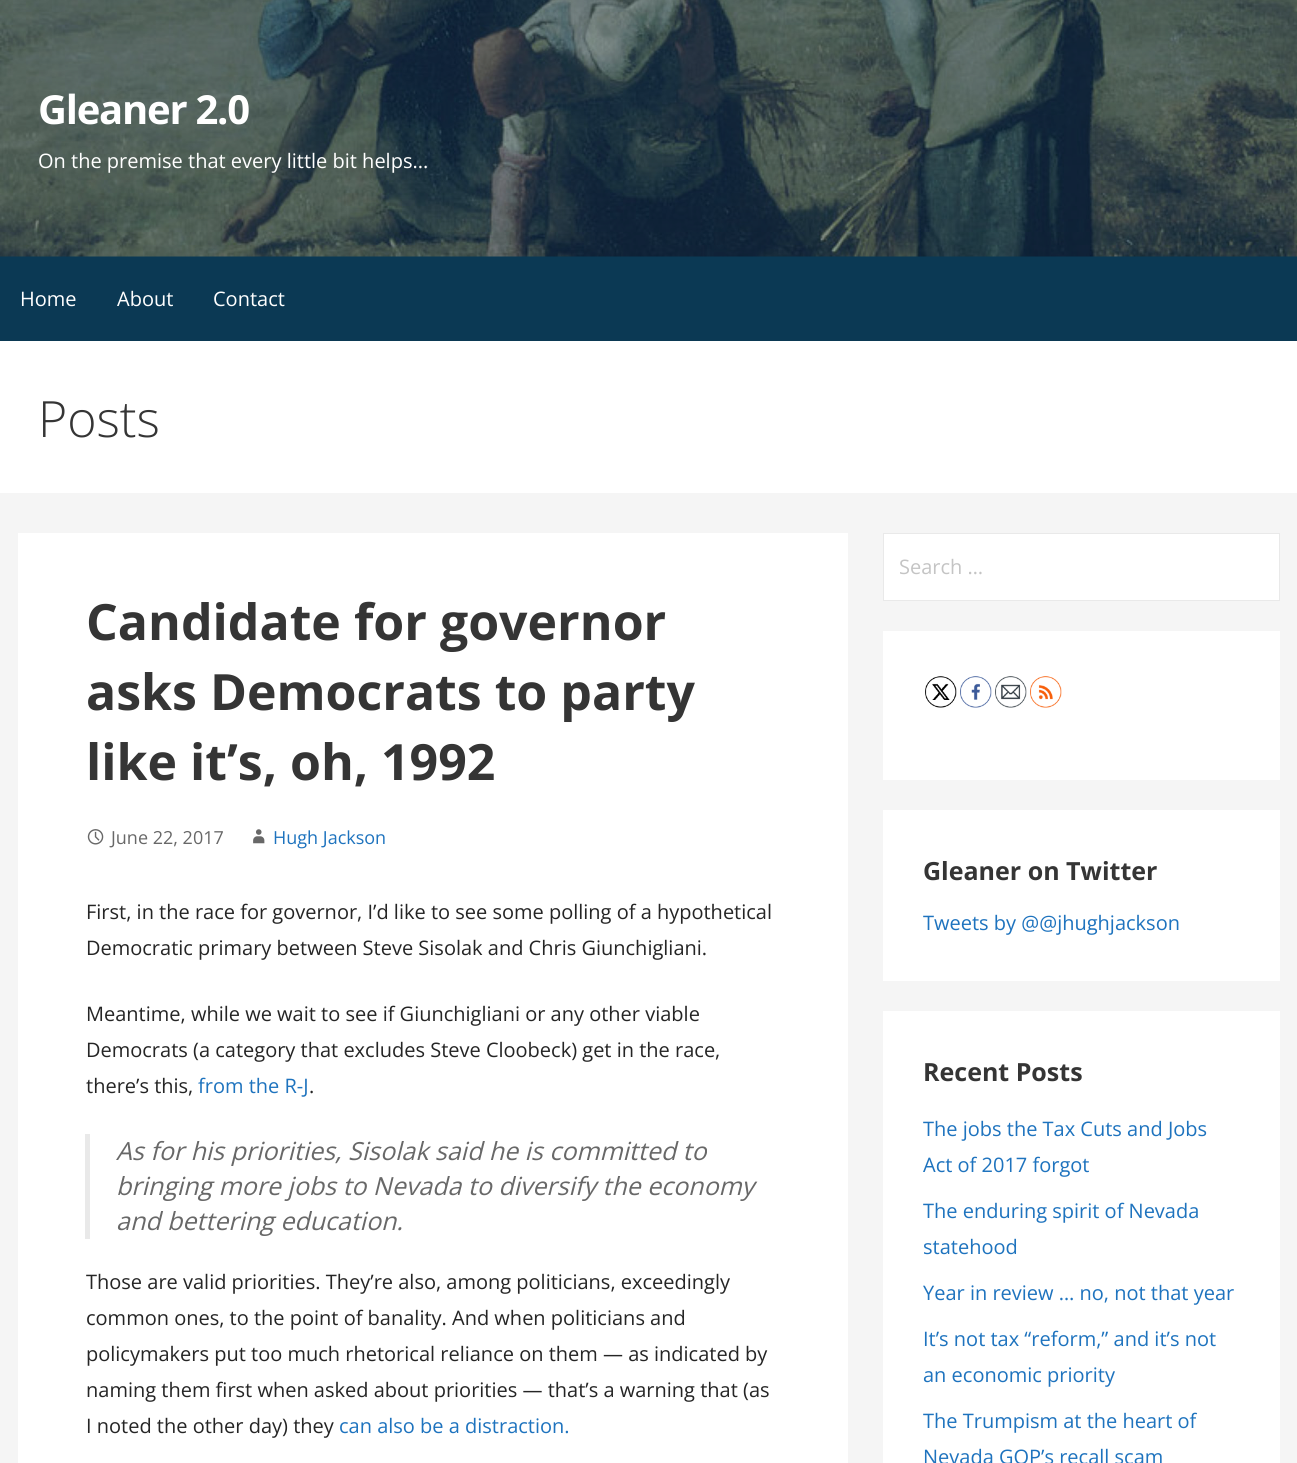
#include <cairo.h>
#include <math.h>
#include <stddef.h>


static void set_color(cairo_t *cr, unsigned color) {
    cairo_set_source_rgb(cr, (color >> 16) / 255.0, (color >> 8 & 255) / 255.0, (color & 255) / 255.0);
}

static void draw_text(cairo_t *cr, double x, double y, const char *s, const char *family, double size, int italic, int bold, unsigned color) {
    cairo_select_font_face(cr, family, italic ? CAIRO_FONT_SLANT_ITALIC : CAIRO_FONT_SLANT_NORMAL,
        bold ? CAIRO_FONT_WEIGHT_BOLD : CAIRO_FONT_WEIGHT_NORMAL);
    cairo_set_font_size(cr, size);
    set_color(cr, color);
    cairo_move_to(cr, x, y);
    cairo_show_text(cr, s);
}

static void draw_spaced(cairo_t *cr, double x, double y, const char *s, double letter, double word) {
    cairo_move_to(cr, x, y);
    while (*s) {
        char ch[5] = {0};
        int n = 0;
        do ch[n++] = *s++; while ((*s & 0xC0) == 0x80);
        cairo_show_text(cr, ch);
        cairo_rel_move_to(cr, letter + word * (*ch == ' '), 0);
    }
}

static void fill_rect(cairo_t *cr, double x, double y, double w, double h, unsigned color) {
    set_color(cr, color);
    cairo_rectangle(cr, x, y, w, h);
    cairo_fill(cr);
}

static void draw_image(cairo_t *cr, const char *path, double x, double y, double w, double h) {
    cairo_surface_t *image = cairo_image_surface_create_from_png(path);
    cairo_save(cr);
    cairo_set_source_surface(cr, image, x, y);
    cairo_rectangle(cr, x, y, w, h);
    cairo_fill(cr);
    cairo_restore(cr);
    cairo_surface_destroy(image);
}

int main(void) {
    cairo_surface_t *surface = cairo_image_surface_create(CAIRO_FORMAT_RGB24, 1297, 1463);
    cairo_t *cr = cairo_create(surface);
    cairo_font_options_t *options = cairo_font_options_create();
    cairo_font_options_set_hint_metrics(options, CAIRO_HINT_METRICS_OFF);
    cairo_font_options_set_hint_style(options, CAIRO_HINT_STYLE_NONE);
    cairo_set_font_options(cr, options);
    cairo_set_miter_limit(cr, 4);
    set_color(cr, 0xF5F5F5);
    cairo_paint(cr);
    fill_rect(cr, 0, 256, 1297, 85, 0x0B3954);
    draw_image(cr, "assets/img1.png", 0, 0, 1297, 257);
    cairo_select_font_face(cr, "Open Sans", CAIRO_FONT_SLANT_NORMAL, CAIRO_FONT_WEIGHT_BOLD);
    cairo_set_font_size(cr, 40);
    set_color(cr, 0xFFFFFF);
    draw_spaced(cr, 38, 124, "Gleaner 2.0", -1.25, 0);
    draw_text(cr, 38, 168, "On the premise that every little bit helps...", "Open Sans", 20, 0, 0, 0xFFFFFF);
    draw_text(cr, 20, 306, "Home", "Open Sans", 20, 0, 0, 0xFFFFFF);
    draw_text(cr, 117, 306, "About", "Open Sans", 20, 0, 0, 0xFFFFFF);
    draw_text(cr, 213, 306, "Contact", "Open Sans", 20, 0, 0, 0xFFFFFF);
    fill_rect(cr, 0, 341, 1297, 152, 0xFFFFFF);
    draw_text(cr, 38, 437, "Posts", "Open Sans Light", 50, 0, 0, 0x353535);
    fill_rect(cr, 18, 533, 830, 930, 0xFFFFFF);
    draw_text(cr, 86, 640, "Candidate for governor", "Open Sans", 50, 0, 1, 0x353535);
    draw_text(cr, 86, 710, "asks Democrats to party", "Open Sans", 50, 0, 1, 0x353535);
    draw_text(cr, 86, 780, "like it’s, oh, 1992", "Open Sans", 50, 0, 1, 0x353535);
    draw_image(cr, "assets/img2.png", 87, 829, 17, 16);
    draw_text(cr, 111, 844, "June 22, 2017", "Open Sans", 18, 0, 0, 0x686868);
    draw_image(cr, "assets/img3.png", 253, 829, 12, 15);
    draw_text(cr, 273, 844, "Hugh Jackson", "Open Sans", 18, 0, 0, 0x1E73BE);
    draw_text(cr, 86, 919, "First, in the race for governor, I’d like to see some polling of a hypothetical", "Open Sans", 20, 0, 0, 0x252525);
    draw_text(cr, 86, 955, "Democratic primary between Steve Sisolak and Chris Giunchigliani.", "Open Sans", 20, 0, 0, 0x252525);
    draw_text(cr, 86, 1021, "Meantime, while we wait to see if Giunchigliani or any other viable", "Open Sans", 20, 0, 0, 0x252525);
    draw_text(cr, 86, 1057, "Democrats (a category that excludes Steve Cloobeck) get in the race,", "Open Sans", 20, 0, 0, 0x252525);
    draw_text(cr, 86, 1093, "there’s this,", "Open Sans", 20, 0, 0, 0x252525);
    draw_text(cr, 198, 1093, "from the R-J", "Open Sans", 20, 0, 0, 0x1E73BE);
    draw_text(cr, 309, 1093, ".", "Open Sans", 20, 0, 0, 0x252525);
    fill_rect(cr, 85, 1134, 5, 105, 0xE9E9E9);
    draw_text(cr, 116, 1160, "As for his priorities, Sisolak said he is committed to", "Open Sans", 25, 1, 0, 0x686868);
    draw_text(cr, 116, 1195, "bringing more jobs to Nevada to diversify the economy", "Open Sans", 25, 1, 0, 0x686868);
    draw_text(cr, 116, 1230, "and bettering education.", "Open Sans", 25, 1, 0, 0x686868);
    draw_text(cr, 86, 1289, "Those are valid priorities. They’re also, among politicians, exceedingly", "Open Sans", 20, 0, 0, 0x252525);
    draw_text(cr, 86, 1325, "common ones, to the point of banality. And when politicians and", "Open Sans", 20, 0, 0, 0x252525);
    draw_text(cr, 86, 1361, "policymakers put too much rhetorical reliance on them — as indicated by", "Open Sans", 20, 0, 0, 0x252525);
    draw_text(cr, 86, 1397, "naming them first when asked about priorities — that’s a warning that (as", "Open Sans", 20, 0, 0, 0x252525);
    draw_text(cr, 86, 1433, "I noted the other day) they", "Open Sans", 20, 0, 0, 0x252525);
    draw_text(cr, 339, 1433, "can also be a distraction.", "Open Sans", 20, 0, 0, 0x1E73BE);
    set_color(cr, 0xFFFFFF);
    cairo_rectangle(cr, 883.5, 533.5, 396, 67);
    cairo_fill_preserve(cr);
    set_color(cr, 0xE9E9E9);
    cairo_set_line_width(cr, 1);
    cairo_stroke(cr);
    draw_text(cr, 899, 574, "Search …", "Open Sans", 20, 0, 0, 0xC4C4C4);
    fill_rect(cr, 883, 631, 397, 149, 0xFFFFFF);
    draw_image(cr, "assets/img4.png", 925, 676, 32, 32);
    draw_image(cr, "assets/img5.png", 960, 676, 32, 32);
    draw_image(cr, "assets/img6.png", 995, 676, 32, 32);
    draw_image(cr, "assets/img7.png", 1030, 676, 32, 32);
    fill_rect(cr, 883, 810, 397, 171, 0xFFFFFF);
    draw_text(cr, 923, 880, "Gleaner on Twitter", "Open Sans", 25, 0, 1, 0x353535);
    draw_text(cr, 923, 930, "Tweets by @@jhughjackson", "Open Sans", 20, 0, 0, 0x1E73BE);
    fill_rect(cr, 883, 1011, 397, 452, 0xFFFFFF);
    draw_text(cr, 923, 1081, "Recent Posts", "Open Sans", 25, 0, 1, 0x353535);
    draw_text(cr, 923, 1136, "The jobs the Tax Cuts and Jobs", "Open Sans", 20, 0, 0, 0x1E73BE);
    draw_text(cr, 923, 1172, "Act of 2017 forgot", "Open Sans", 20, 0, 0, 0x1E73BE);
    draw_text(cr, 923, 1218, "The enduring spirit of Nevada", "Open Sans", 20, 0, 0, 0x1E73BE);
    draw_text(cr, 923, 1254, "statehood", "Open Sans", 20, 0, 0, 0x1E73BE);
    draw_text(cr, 923, 1300, "Year in review … no, not that year", "Open Sans", 20, 0, 0, 0x1E73BE);
    draw_text(cr, 923, 1346, "It’s not tax “reform,” and it’s not", "Open Sans", 20, 0, 0, 0x1E73BE);
    draw_text(cr, 923, 1382, "an economic priority", "Open Sans", 20, 0, 0, 0x1E73BE);
    draw_text(cr, 923, 1428, "The Trumpism at the heart of", "Open Sans", 20, 0, 0, 0x1E73BE);
    draw_text(cr, 923, 1464, "Nevada GOP’s recall scam", "Open Sans", 20, 0, 0, 0x1E73BE);
    cairo_surface_write_to_png(surface, "output.png");
    cairo_font_options_destroy(options);
    cairo_destroy(cr);
    cairo_surface_destroy(surface);
    return 0;
}
